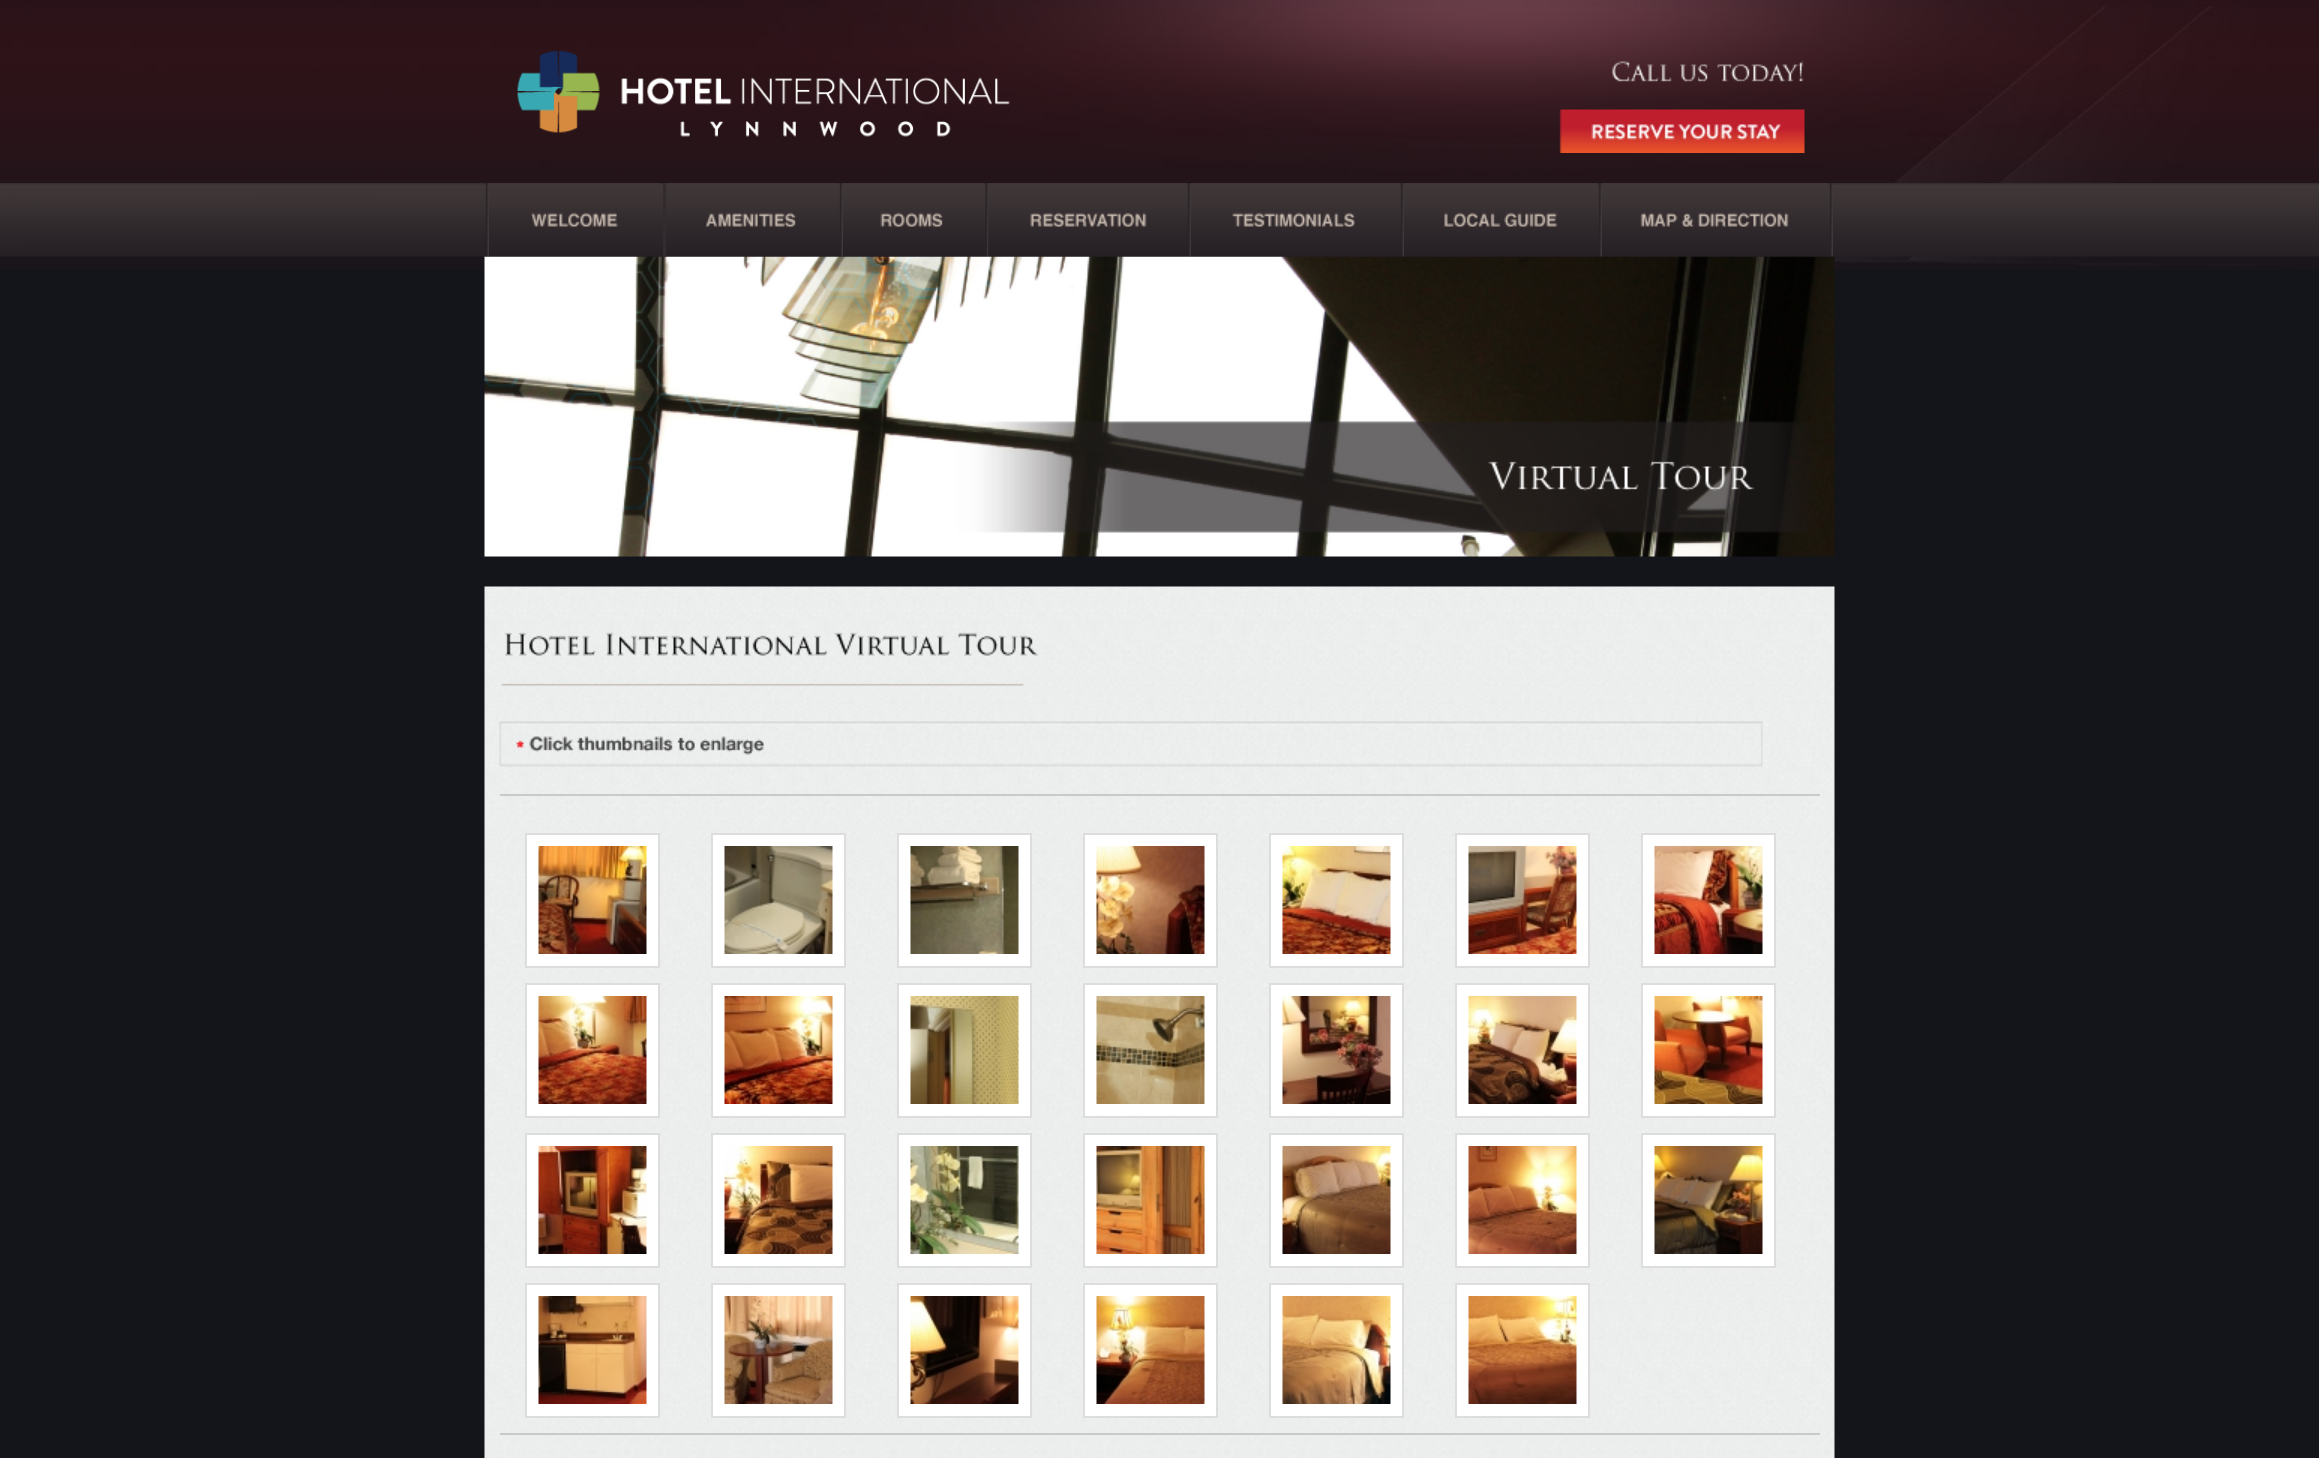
#include <cairo.h>
#include <math.h>
#include <stddef.h>


static void set_color(cairo_t *cr, unsigned color) {
    cairo_set_source_rgb(cr, (color >> 16) / 255.0, (color >> 8 & 255) / 255.0, (color & 255) / 255.0);
}

static void fill_rect(cairo_t *cr, double x, double y, double w, double h, unsigned color) {
    set_color(cr, color);
    cairo_rectangle(cr, x, y, w, h);
    cairo_fill(cr);
}

static void draw_image(cairo_t *cr, const char *path, double x, double y, double w, double h) {
    cairo_surface_t *image = cairo_image_surface_create_from_png(path);
    cairo_save(cr);
    cairo_set_source_surface(cr, image, x, y);
    cairo_rectangle(cr, x, y, w, h);
    cairo_fill(cr);
    cairo_restore(cr);
    cairo_surface_destroy(image);
}

int main(void) {
    cairo_surface_t *surface = cairo_image_surface_create(CAIRO_FORMAT_RGB24, 2319, 1458);
    cairo_t *cr = cairo_create(surface);
    cairo_font_options_t *options = cairo_font_options_create();
    cairo_font_options_set_hint_metrics(options, CAIRO_HINT_METRICS_OFF);
    cairo_font_options_set_hint_style(options, CAIRO_HINT_STYLE_NONE);
    cairo_set_font_options(cr, options);
    cairo_set_miter_limit(cr, 4);
    set_color(cr, 0x14151A);
    cairo_paint(cr);
    draw_image(cr, "assets/img1.png", 0, 0, 2319, 270);
    draw_image(cr, "assets/img2.png", 517, 50, 493, 87);
    draw_image(cr, "assets/img3.png", 1612, 61, 192, 21);
    draw_image(cr, "assets/img4.png", 1559, 109, 246, 44);
    draw_image(cr, "assets/img5.png", 0, 183, 2319, 74);
    draw_image(cr, "assets/img20.png", 484, 256, 1351, 301);
    draw_image(cr, "assets/img6.png", 484, 183, 5, 74);
    draw_image(cr, "assets/img7.png", 489, 183, 172, 74);
    fill_rect(cr, 663, 183, 3, 74, 0x322C2F);
    draw_image(cr, "assets/img8.png", 666, 183, 173, 74);
    draw_image(cr, "assets/img9.png", 838, 183, 5, 74);
    draw_image(cr, "assets/img10.png", 843, 183, 141, 74);
    draw_image(cr, "assets/img11.png", 984, 183, 5, 74);
    draw_image(cr, "assets/img12.png", 988, 183, 199, 74);
    draw_image(cr, "assets/img13.png", 1186, 183, 5, 74);
    draw_image(cr, "assets/img14.png", 1191, 183, 208, 74);
    draw_image(cr, "assets/img15.png", 1400, 183, 4, 74);
    draw_image(cr, "assets/img16.png", 1404, 183, 193, 74);
    draw_image(cr, "assets/img17.png", 1598, 183, 4, 74);
    draw_image(cr, "assets/img18.png", 1602, 183, 226, 74);
    draw_image(cr, "assets/img19.png", 1829, 183, 4, 74);
    draw_image(cr, "assets/img21.png", 484, 586, 1351, 872);
    draw_image(cr, "assets/img22.png", 501, 632, 538, 54);
    draw_image(cr, "assets/img23.png", 499, 721, 1264, 46);
    fill_rect(cr, 500, 794, 1320, 2, 0xC9C9C9);
    set_color(cr, 0xFFFFFF);
    cairo_rectangle(cr, 526, 834, 133, 133);
    cairo_fill_preserve(cr);
    set_color(cr, 0xDDDDDD);
    cairo_stroke(cr);
    draw_image(cr, "assets/img24.png", 538, 846, 109, 108);
    set_color(cr, 0xFFFFFF);
    cairo_rectangle(cr, 712, 834, 133, 133);
    cairo_fill_preserve(cr);
    set_color(cr, 0xDDDDDD);
    cairo_stroke(cr);
    draw_image(cr, "assets/img25.png", 724, 846, 109, 108);
    set_color(cr, 0xFFFFFF);
    cairo_rectangle(cr, 898, 834, 133, 133);
    cairo_fill_preserve(cr);
    set_color(cr, 0xDDDDDD);
    cairo_stroke(cr);
    draw_image(cr, "assets/img26.png", 910, 846, 109, 108);
    set_color(cr, 0xFFFFFF);
    cairo_rectangle(cr, 1084, 834, 133, 133);
    cairo_fill_preserve(cr);
    set_color(cr, 0xDDDDDD);
    cairo_stroke(cr);
    draw_image(cr, "assets/img27.png", 1096, 846, 109, 108);
    set_color(cr, 0xFFFFFF);
    cairo_rectangle(cr, 1270, 834, 133, 133);
    cairo_fill_preserve(cr);
    set_color(cr, 0xDDDDDD);
    cairo_stroke(cr);
    draw_image(cr, "assets/img28.png", 1282, 846, 109, 108);
    set_color(cr, 0xFFFFFF);
    cairo_rectangle(cr, 1456, 834, 133, 133);
    cairo_fill_preserve(cr);
    set_color(cr, 0xDDDDDD);
    cairo_stroke(cr);
    draw_image(cr, "assets/img29.png", 1468, 846, 109, 108);
    set_color(cr, 0xFFFFFF);
    cairo_rectangle(cr, 1642, 834, 133, 133);
    cairo_fill_preserve(cr);
    set_color(cr, 0xDDDDDD);
    cairo_stroke(cr);
    draw_image(cr, "assets/img30.png", 1654, 846, 109, 108);
    set_color(cr, 0xFFFFFF);
    cairo_rectangle(cr, 526, 984, 133, 133);
    cairo_fill_preserve(cr);
    set_color(cr, 0xDDDDDD);
    cairo_stroke(cr);
    draw_image(cr, "assets/img31.png", 538, 996, 109, 108);
    set_color(cr, 0xFFFFFF);
    cairo_rectangle(cr, 712, 984, 133, 133);
    cairo_fill_preserve(cr);
    set_color(cr, 0xDDDDDD);
    cairo_stroke(cr);
    draw_image(cr, "assets/img32.png", 724, 996, 109, 108);
    set_color(cr, 0xFFFFFF);
    cairo_rectangle(cr, 898, 984, 133, 133);
    cairo_fill_preserve(cr);
    set_color(cr, 0xDDDDDD);
    cairo_stroke(cr);
    draw_image(cr, "assets/img33.png", 910, 996, 109, 108);
    set_color(cr, 0xFFFFFF);
    cairo_rectangle(cr, 1084, 984, 133, 133);
    cairo_fill_preserve(cr);
    set_color(cr, 0xDDDDDD);
    cairo_stroke(cr);
    draw_image(cr, "assets/img34.png", 1096, 996, 109, 108);
    set_color(cr, 0xFFFFFF);
    cairo_rectangle(cr, 1270, 984, 133, 133);
    cairo_fill_preserve(cr);
    set_color(cr, 0xDDDDDD);
    cairo_stroke(cr);
    draw_image(cr, "assets/img35.png", 1282, 996, 109, 108);
    set_color(cr, 0xFFFFFF);
    cairo_rectangle(cr, 1456, 984, 133, 133);
    cairo_fill_preserve(cr);
    set_color(cr, 0xDDDDDD);
    cairo_stroke(cr);
    draw_image(cr, "assets/img36.png", 1468, 996, 109, 108);
    set_color(cr, 0xFFFFFF);
    cairo_rectangle(cr, 1642, 984, 133, 133);
    cairo_fill_preserve(cr);
    set_color(cr, 0xDDDDDD);
    cairo_stroke(cr);
    draw_image(cr, "assets/img37.png", 1654, 996, 109, 108);
    set_color(cr, 0xFFFFFF);
    cairo_rectangle(cr, 526, 1134, 133, 133);
    cairo_fill_preserve(cr);
    set_color(cr, 0xDDDDDD);
    cairo_stroke(cr);
    draw_image(cr, "assets/img38.png", 538, 1146, 109, 108);
    set_color(cr, 0xFFFFFF);
    cairo_rectangle(cr, 712, 1134, 133, 133);
    cairo_fill_preserve(cr);
    set_color(cr, 0xDDDDDD);
    cairo_stroke(cr);
    draw_image(cr, "assets/img39.png", 724, 1146, 109, 108);
    set_color(cr, 0xFFFFFF);
    cairo_rectangle(cr, 898, 1134, 133, 133);
    cairo_fill_preserve(cr);
    set_color(cr, 0xDDDDDD);
    cairo_stroke(cr);
    draw_image(cr, "assets/img40.png", 910, 1146, 109, 108);
    set_color(cr, 0xFFFFFF);
    cairo_rectangle(cr, 1084, 1134, 133, 133);
    cairo_fill_preserve(cr);
    set_color(cr, 0xDDDDDD);
    cairo_stroke(cr);
    draw_image(cr, "assets/img41.png", 1096, 1146, 109, 108);
    set_color(cr, 0xFFFFFF);
    cairo_rectangle(cr, 1270, 1134, 133, 133);
    cairo_fill_preserve(cr);
    set_color(cr, 0xDDDDDD);
    cairo_stroke(cr);
    draw_image(cr, "assets/img42.png", 1282, 1146, 109, 108);
    set_color(cr, 0xFFFFFF);
    cairo_rectangle(cr, 1456, 1134, 133, 133);
    cairo_fill_preserve(cr);
    set_color(cr, 0xDDDDDD);
    cairo_stroke(cr);
    draw_image(cr, "assets/img43.png", 1468, 1146, 109, 108);
    set_color(cr, 0xFFFFFF);
    cairo_rectangle(cr, 1642, 1134, 133, 133);
    cairo_fill_preserve(cr);
    set_color(cr, 0xDDDDDD);
    cairo_stroke(cr);
    draw_image(cr, "assets/img44.png", 1654, 1146, 109, 108);
    set_color(cr, 0xFFFFFF);
    cairo_rectangle(cr, 526, 1284, 133, 133);
    cairo_fill_preserve(cr);
    set_color(cr, 0xDDDDDD);
    cairo_stroke(cr);
    draw_image(cr, "assets/img45.png", 538, 1296, 109, 108);
    set_color(cr, 0xFFFFFF);
    cairo_rectangle(cr, 712, 1284, 133, 133);
    cairo_fill_preserve(cr);
    set_color(cr, 0xDDDDDD);
    cairo_stroke(cr);
    draw_image(cr, "assets/img46.png", 724, 1296, 109, 108);
    set_color(cr, 0xFFFFFF);
    cairo_rectangle(cr, 898, 1284, 133, 133);
    cairo_fill_preserve(cr);
    set_color(cr, 0xDDDDDD);
    cairo_stroke(cr);
    draw_image(cr, "assets/img47.png", 910, 1296, 109, 108);
    set_color(cr, 0xFFFFFF);
    cairo_rectangle(cr, 1084, 1284, 133, 133);
    cairo_fill_preserve(cr);
    set_color(cr, 0xDDDDDD);
    cairo_stroke(cr);
    draw_image(cr, "assets/img48.png", 1096, 1296, 109, 108);
    set_color(cr, 0xFFFFFF);
    cairo_rectangle(cr, 1270, 1284, 133, 133);
    cairo_fill_preserve(cr);
    set_color(cr, 0xDDDDDD);
    cairo_stroke(cr);
    draw_image(cr, "assets/img49.png", 1282, 1296, 109, 108);
    set_color(cr, 0xFFFFFF);
    cairo_rectangle(cr, 1456, 1284, 133, 133);
    cairo_fill_preserve(cr);
    set_color(cr, 0xDDDDDD);
    cairo_stroke(cr);
    draw_image(cr, "assets/img50.png", 1468, 1296, 109, 108);
    fill_rect(cr, 500, 1433, 1320, 2, 0xC9C9C9);
    cairo_surface_write_to_png(surface, "output.png");
    cairo_font_options_destroy(options);
    cairo_destroy(cr);
    cairo_surface_destroy(surface);
    return 0;
}
